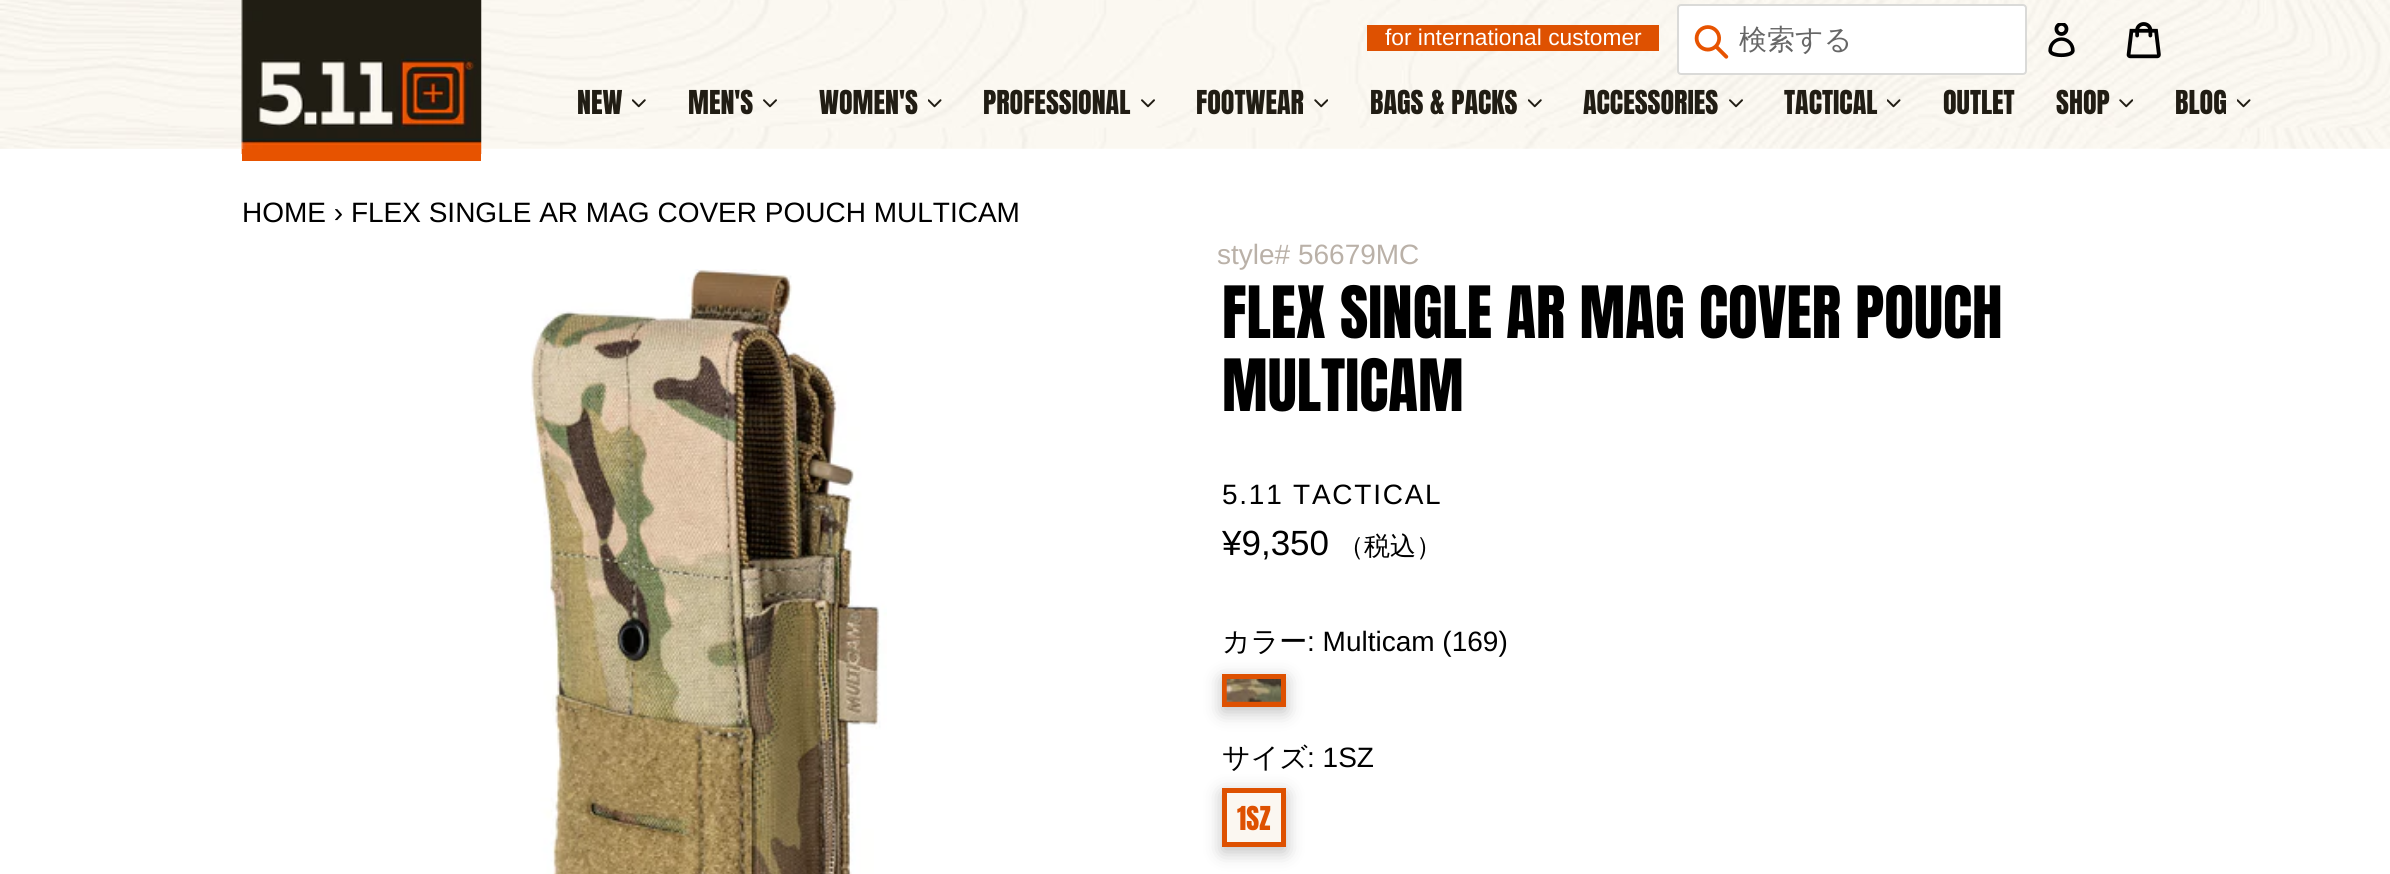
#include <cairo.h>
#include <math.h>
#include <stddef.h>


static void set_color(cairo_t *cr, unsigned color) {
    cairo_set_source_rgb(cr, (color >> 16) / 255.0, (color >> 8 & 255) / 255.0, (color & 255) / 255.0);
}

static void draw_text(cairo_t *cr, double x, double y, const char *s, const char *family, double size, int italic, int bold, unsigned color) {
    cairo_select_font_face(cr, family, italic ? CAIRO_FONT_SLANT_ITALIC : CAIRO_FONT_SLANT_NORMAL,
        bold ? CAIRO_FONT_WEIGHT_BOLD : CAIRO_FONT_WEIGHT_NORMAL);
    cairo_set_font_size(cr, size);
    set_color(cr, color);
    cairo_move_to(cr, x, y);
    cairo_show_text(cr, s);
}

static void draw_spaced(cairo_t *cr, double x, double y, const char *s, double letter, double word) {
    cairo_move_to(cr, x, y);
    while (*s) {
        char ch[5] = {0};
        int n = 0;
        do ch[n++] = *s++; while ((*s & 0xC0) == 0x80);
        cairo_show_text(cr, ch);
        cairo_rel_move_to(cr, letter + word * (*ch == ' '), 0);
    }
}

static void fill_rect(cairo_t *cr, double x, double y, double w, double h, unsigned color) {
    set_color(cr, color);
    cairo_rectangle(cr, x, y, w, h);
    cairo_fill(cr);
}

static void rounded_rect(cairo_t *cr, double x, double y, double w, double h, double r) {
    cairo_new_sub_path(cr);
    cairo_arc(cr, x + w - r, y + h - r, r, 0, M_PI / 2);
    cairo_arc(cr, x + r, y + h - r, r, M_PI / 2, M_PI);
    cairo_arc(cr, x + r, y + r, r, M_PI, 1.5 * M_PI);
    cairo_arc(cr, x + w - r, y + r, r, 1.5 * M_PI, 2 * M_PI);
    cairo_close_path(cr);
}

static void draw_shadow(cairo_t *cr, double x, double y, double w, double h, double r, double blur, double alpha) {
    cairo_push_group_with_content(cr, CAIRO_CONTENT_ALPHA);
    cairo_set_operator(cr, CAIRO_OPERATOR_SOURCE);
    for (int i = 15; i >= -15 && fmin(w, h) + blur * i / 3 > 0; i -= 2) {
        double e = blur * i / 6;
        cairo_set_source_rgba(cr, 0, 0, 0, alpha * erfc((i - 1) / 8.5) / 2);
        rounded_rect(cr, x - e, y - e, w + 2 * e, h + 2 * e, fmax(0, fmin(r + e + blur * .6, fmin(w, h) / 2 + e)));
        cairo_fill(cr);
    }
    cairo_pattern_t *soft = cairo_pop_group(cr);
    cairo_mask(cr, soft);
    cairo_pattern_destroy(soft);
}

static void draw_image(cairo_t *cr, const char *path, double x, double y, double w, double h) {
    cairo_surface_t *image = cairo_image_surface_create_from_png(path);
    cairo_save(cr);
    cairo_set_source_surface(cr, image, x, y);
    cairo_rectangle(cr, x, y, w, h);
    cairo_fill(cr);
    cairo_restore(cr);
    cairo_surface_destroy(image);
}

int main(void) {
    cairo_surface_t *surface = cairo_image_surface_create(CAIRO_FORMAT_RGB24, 2390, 874);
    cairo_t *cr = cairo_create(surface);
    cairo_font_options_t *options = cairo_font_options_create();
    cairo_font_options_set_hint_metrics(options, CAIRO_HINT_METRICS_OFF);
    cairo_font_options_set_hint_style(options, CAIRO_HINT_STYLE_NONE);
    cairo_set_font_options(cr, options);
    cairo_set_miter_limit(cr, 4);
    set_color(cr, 0xFFFFFF);
    cairo_paint(cr);
    draw_image(cr, "assets/img1.png", 0, 0, 2390, 149);
    draw_image(cr, "assets/img2.png", 241, 0, 241, 154);
    fill_rect(cr, 242, 149, 239, 12, 0xE75300);
    fill_rect(cr, 1367, 25, 292, 26, 0xDE5101);
    draw_text(cr, 1385, 45, "for international customer", "Liberation Sans", 22.75, 0, 0, 0xFFFFFF);
    rounded_rect(cr, 1678, 5, 348, 69, 3);
    cairo_fill_preserve(cr);
    set_color(cr, 0xDADAD8);
    cairo_stroke(cr);
    draw_image(cr, "assets/img3.png", 1694, 25, 35, 34);
    draw_text(cr, 1739, 49, "検索する", "WenQuanYi Zen Hei Medium", 28, 0, 0, 0x666666);
    draw_image(cr, "assets/img4.png", 2048, 23, 27, 35);
    draw_image(cr, "assets/img5.png", 2126, 22, 35, 37);
    draw_text(cr, 577, 114, "NEW", "Anton", 28, 0, 0, 0x211D14);
    draw_image(cr, "assets/img6.png", 632, 99, 14, 9);
    draw_text(cr, 688, 114, "MEN'S", "Anton", 28, 0, 0, 0x211D14);
    draw_image(cr, "assets/img7.png", 763, 99, 14, 9);
    draw_text(cr, 819, 114, "WOMEN'S", "Anton", 28, 0, 0, 0x211D14);
    draw_image(cr, "assets/img8.png", 928, 99, 14, 9);
    draw_text(cr, 983, 114, "PROFESSIONAL", "Anton", 28, 0, 0, 0x211D14);
    draw_image(cr, "assets/img9.png", 1141, 99, 14, 9);
    draw_text(cr, 1196, 114, "FOOTWEAR", "Anton", 28, 0, 0, 0x211D14);
    draw_image(cr, "assets/img10.png", 1314, 99, 14, 9);
    draw_text(cr, 1370, 114, "BAGS & PACKS", "Anton", 28, 0, 0, 0x211D14);
    draw_image(cr, "assets/img11.png", 1528, 99, 14, 9);
    draw_text(cr, 1583, 114, "ACCESSORIES", "Anton", 28, 0, 0, 0x211D14);
    draw_image(cr, "assets/img12.png", 1729, 99, 14, 9);
    draw_text(cr, 1784, 114, "TACTICAL", "Anton", 28, 0, 0, 0x211D14);
    draw_image(cr, "assets/img13.png", 1887, 99, 14, 9);
    draw_text(cr, 1943, 114, "OUTLET", "Anton", 28, 0, 0, 0x211D14);
    draw_text(cr, 2056, 114, "SHOP", "Anton", 28, 0, 0, 0x211D14);
    draw_image(cr, "assets/img14.png", 2119, 99, 14, 9);
    draw_text(cr, 2175, 114, "BLOG", "Anton", 28, 0, 0, 0x211D14);
    draw_image(cr, "assets/img15.png", 2237, 99, 14, 9);
    draw_text(cr, 242, 222, "HOME › FLEX SINGLE AR MAG COVER POUCH MULTICAM", "Liberation Sans", 28, 0, 0, 0x000000);
    draw_image(cr, "assets/img16.png", 530, 269, 357, 605);
    draw_text(cr, 1217, 264, "style# 56679MC", "Liberation Sans", 28, 0, 0, 0xBAB1A8);
    draw_text(cr, 1222, 338, "FLEX SINGLE AR MAG COVER POUCH", "Anton", 61.25, 0, 0, 0x000000);
    draw_text(cr, 1222, 411, "MULTICAM", "Anton", 61.25, 0, 0, 0x000000);
    cairo_select_font_face(cr, "Liberation Sans", CAIRO_FONT_SLANT_NORMAL, CAIRO_FONT_WEIGHT_NORMAL);
    cairo_set_font_size(cr, 28);
    draw_spaced(cr, 1222, 504, "5.11 TACTICAL", 1.75, 0);
    draw_text(cr, 1222, 555, "¥9,350", "Liberation Sans", 35, 0, 0, 0x000000);
    draw_text(cr, 1338, 555, "（税込）", "WenQuanYi Zen Hei Medium", 26, 0, 0, 0x000000);
    draw_text(cr, 1222, 651, "カラー", "WenQuanYi Zen Hei Medium", 28, 0, 0, 0x000000);
    draw_text(cr, 1307, 651, ": Multicam (169)", "Liberation Sans", 28, 0, 0, 0x000000);
    set_color(cr, 0x000000);
    draw_shadow(cr, 1222, 679, 64, 33, 0, 9, 0.25);
    fill_rect(cr, 1222, 674, 64, 33, 0xDE5101);
    draw_image(cr, "assets/img17.png", 1226, 679, 55, 23);
    draw_text(cr, 1222, 767, "サイズ", "WenQuanYi Zen Hei Medium", 28, 0, 0, 0x000000);
    draw_text(cr, 1307, 767, ": 1SZ", "Liberation Sans", 28, 0, 0, 0x000000);
    set_color(cr, 0x000000);
    draw_shadow(cr, 1222, 793, 64, 59, 0, 9, 0.25);
    set_color(cr, 0xFBF7F1);
    cairo_rectangle(cr, 1224.5, 790.5, 59, 54);
    cairo_fill_preserve(cr);
    set_color(cr, 0xDE5101);
    cairo_set_line_width(cr, 5);
    cairo_stroke(cr);
    draw_text(cr, 1237, 830, "1SZ", "Anton", 28, 0, 0, 0xDE5101);
    cairo_surface_write_to_png(surface, "output.png");
    cairo_font_options_destroy(options);
    cairo_destroy(cr);
    cairo_surface_destroy(surface);
    return 0;
}
